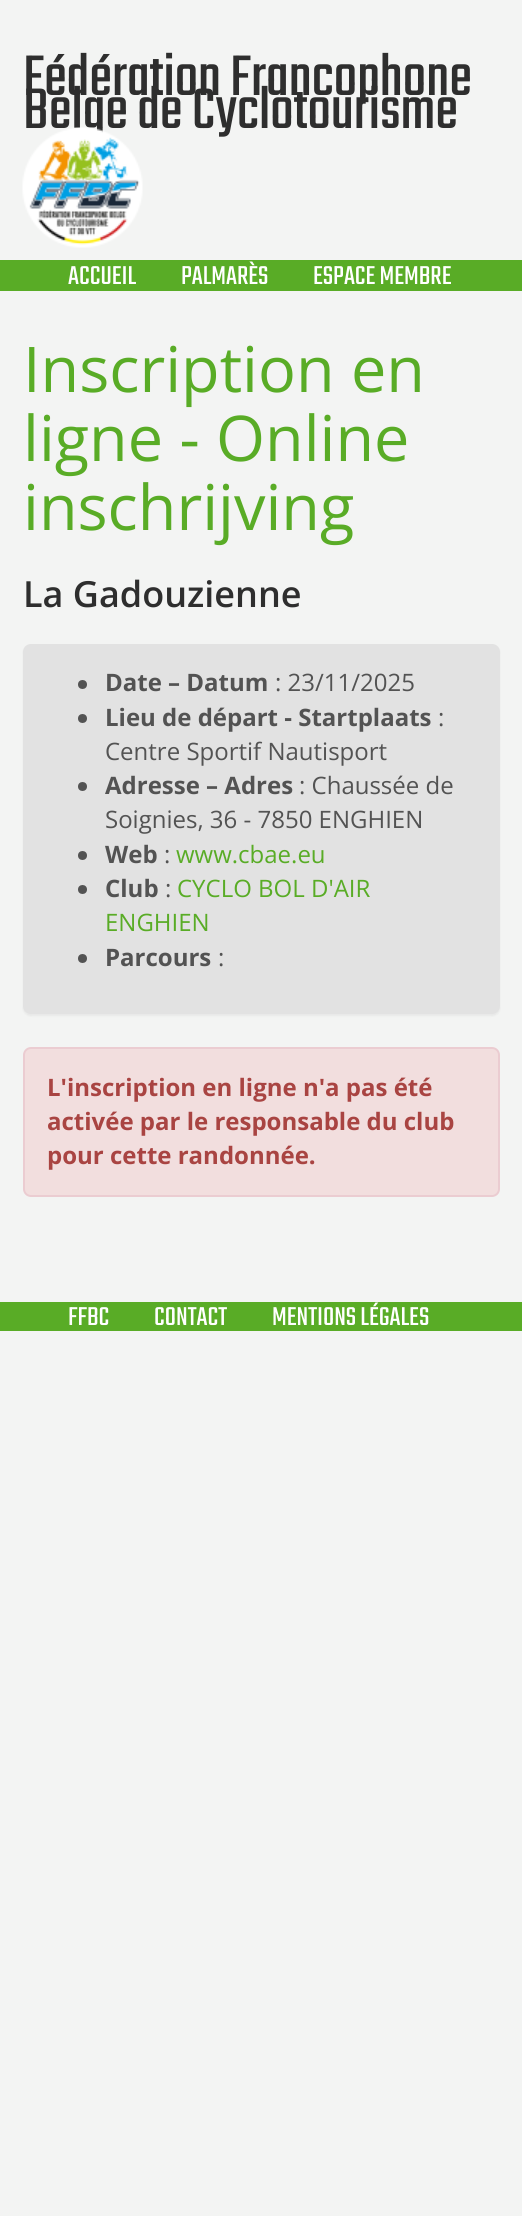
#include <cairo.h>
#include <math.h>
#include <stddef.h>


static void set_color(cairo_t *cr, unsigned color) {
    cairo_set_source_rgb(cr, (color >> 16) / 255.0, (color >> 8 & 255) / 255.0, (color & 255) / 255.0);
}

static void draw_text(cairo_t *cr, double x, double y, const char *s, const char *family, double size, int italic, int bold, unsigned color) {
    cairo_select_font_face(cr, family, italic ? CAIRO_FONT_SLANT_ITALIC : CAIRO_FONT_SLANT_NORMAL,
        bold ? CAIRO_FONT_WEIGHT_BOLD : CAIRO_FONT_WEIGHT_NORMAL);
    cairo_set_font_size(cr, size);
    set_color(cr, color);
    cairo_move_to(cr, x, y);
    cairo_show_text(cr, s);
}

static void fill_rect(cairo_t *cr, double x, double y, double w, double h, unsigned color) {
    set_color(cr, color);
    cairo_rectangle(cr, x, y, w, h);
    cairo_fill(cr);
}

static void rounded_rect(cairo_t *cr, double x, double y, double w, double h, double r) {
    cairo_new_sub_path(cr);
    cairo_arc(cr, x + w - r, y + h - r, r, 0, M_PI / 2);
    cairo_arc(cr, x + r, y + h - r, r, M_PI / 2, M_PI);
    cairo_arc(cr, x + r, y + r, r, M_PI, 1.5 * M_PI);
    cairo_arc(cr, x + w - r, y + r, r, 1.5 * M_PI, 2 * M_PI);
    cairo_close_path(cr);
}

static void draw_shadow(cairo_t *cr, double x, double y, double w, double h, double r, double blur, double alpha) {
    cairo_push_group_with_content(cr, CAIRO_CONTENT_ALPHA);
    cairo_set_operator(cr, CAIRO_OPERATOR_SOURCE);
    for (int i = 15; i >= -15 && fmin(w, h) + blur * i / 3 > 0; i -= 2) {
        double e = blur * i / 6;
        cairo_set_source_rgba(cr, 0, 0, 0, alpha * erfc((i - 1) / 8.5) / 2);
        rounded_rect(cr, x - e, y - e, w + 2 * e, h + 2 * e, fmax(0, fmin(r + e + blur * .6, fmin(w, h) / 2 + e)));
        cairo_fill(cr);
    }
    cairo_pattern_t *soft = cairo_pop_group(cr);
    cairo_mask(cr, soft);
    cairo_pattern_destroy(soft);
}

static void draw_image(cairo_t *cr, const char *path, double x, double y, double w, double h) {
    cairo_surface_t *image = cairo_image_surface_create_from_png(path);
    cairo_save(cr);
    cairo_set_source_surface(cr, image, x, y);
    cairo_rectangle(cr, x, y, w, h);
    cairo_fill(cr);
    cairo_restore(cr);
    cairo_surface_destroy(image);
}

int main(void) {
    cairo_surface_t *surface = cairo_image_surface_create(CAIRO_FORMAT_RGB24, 522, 2216);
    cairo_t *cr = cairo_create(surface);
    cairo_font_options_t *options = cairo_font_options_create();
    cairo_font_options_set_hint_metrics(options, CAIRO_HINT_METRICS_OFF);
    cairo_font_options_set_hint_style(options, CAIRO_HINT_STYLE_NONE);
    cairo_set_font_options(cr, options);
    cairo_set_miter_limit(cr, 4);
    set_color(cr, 0xF3F4F3);
    cairo_paint(cr);
    draw_text(cr, 23, 95, "Fédération Francophone", "Teko", 63, 0, 0, 0x2E2E2E);
    draw_text(cr, 23, 128, "Belge de Cyclotourisme", "Teko", 63, 0, 0, 0x2E2E2E);
    draw_image(cr, "assets/img1.png", 22, 127, 121, 121);
    fill_rect(cr, 0, 260, 522, 31, 0x59AC26);
    draw_text(cr, 68, 284, "ACCUEIL", "Teko", 28.5, 0, 0, 0xFFFFFF);
    draw_text(cr, 181, 284, "PALMARÈS", "Teko", 28.5, 0, 0, 0xFFFFFF);
    draw_text(cr, 313, 284, "ESPACE MEMBRE", "Teko", 28.5, 0, 0, 0xFFFFFF);
    draw_text(cr, 23, 392, "Inscription en", "Open Sans", 63, 0, 0, 0x59AC26);
    draw_text(cr, 23, 461, "ligne - Online", "Open Sans", 63, 0, 0, 0x59AC26);
    draw_text(cr, 23, 530, "inschrijving", "Open Sans", 63, 0, 0, 0x59AC26);
    draw_text(cr, 23, 607, "La Gadouzienne", "Open Sans SemiBold", 36, 0, 0, 0x2E2E2E);
    set_color(cr, 0x000000);
    draw_shadow(cr, 23, 645, 477, 371, 8, 1, 0.05);
    set_color(cr, 0xE2E2E2);
    rounded_rect(cr, 23, 644, 477, 370, 8);
    cairo_fill(cr);
    set_color(cr, 0x535353);
    cairo_arc(cr, 82.5, 684.5, 4.5, 0, 2 * M_PI);
    cairo_fill(cr);
    draw_text(cr, 105, 691, "Date – Datum", "Open Sans", 24, 0, 1, 0x535353);
    draw_text(cr, 275, 691, ": 23/11/2025", "Open Sans", 24, 0, 0, 0x535353);
    cairo_new_path(cr);
    cairo_arc(cr, 82.5, 718.5, 4.5, 0, 2 * M_PI);
    cairo_fill(cr);
    draw_text(cr, 105, 726, "Lieu de départ - Startplaats", "Open Sans", 24, 0, 1, 0x535353);
    draw_text(cr, 438, 726, ":", "Open Sans", 24, 0, 0, 0x535353);
    draw_text(cr, 105, 760, "Centre Sportif Nautisport", "Open Sans", 24, 0, 0, 0x535353);
    cairo_new_path(cr);
    cairo_arc(cr, 82.5, 786.5, 4.5, 0, 2 * M_PI);
    cairo_fill(cr);
    draw_text(cr, 105, 794, "Adresse – Adres", "Open Sans", 24, 0, 1, 0x535353);
    draw_text(cr, 299, 794, ": Chaussée de", "Open Sans", 24, 0, 0, 0x535353);
    draw_text(cr, 105, 828, "Soignies, 36 - 7850 ENGHIEN", "Open Sans", 24, 0, 0, 0x535353);
    cairo_new_path(cr);
    cairo_arc(cr, 82.5, 855.5, 4.5, 0, 2 * M_PI);
    cairo_fill(cr);
    draw_text(cr, 105, 863, "Web", "Open Sans", 24, 0, 1, 0x535353);
    draw_text(cr, 164, 863, ":", "Open Sans", 24, 0, 0, 0x535353);
    draw_text(cr, 176, 863, "www.cbae.eu", "Open Sans", 24, 0, 0, 0x59AC26);
    set_color(cr, 0x535353);
    cairo_new_path(cr);
    cairo_arc(cr, 82.5, 889.5, 4.5, 0, 2 * M_PI);
    cairo_fill(cr);
    draw_text(cr, 105, 897, "Club", "Open Sans", 24, 0, 1, 0x535353);
    draw_text(cr, 165, 897, ":", "Open Sans", 24, 0, 0, 0x535353);
    draw_text(cr, 177, 897, "CYCLO BOL D'AIR", "Open Sans", 24, 0, 0, 0x59AC26);
    draw_text(cr, 105, 931, "ENGHIEN", "Open Sans", 24, 0, 0, 0x59AC26);
    set_color(cr, 0x535353);
    cairo_new_path(cr);
    cairo_arc(cr, 82.5, 958.5, 4.5, 0, 2 * M_PI);
    cairo_fill(cr);
    draw_text(cr, 105, 966, "Parcours", "Open Sans", 24, 0, 1, 0x535353);
    draw_text(cr, 218, 966, ":", "Open Sans", 24, 0, 0, 0x535353);
    set_color(cr, 0xF2DEDE);
    rounded_rect(cr, 24, 1048, 475, 148, 7);
    cairo_fill_preserve(cr);
    set_color(cr, 0xEBCCD1);
    cairo_stroke(cr);
    draw_text(cr, 47, 1096, "L'inscription en ligne n'a pas été", "Open Sans", 24, 0, 1, 0xA94442);
    draw_text(cr, 47, 1130, "activée par le responsable du club", "Open Sans", 24, 0, 1, 0xA94442);
    draw_text(cr, 47, 1164, "pour cette randonnée.", "Open Sans", 24, 0, 1, 0xA94442);
    fill_rect(cr, 0, 1302, 522, 29, 0x59AC26);
    draw_text(cr, 68, 1325, "FFBC", "Teko", 28.5, 0, 0, 0xFFFFFF);
    draw_text(cr, 154, 1325, "CONTACT", "Teko", 28.5, 0, 0, 0xFFFFFF);
    draw_text(cr, 272, 1325, "MENTIONS LÉGALES", "Teko", 28.5, 0, 0, 0xFFFFFF);
    cairo_surface_write_to_png(surface, "output.png");
    cairo_font_options_destroy(options);
    cairo_destroy(cr);
    cairo_surface_destroy(surface);
    return 0;
}
